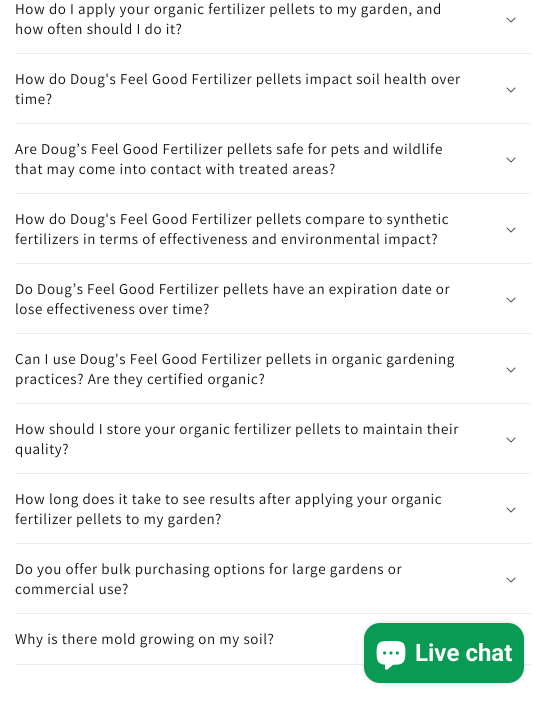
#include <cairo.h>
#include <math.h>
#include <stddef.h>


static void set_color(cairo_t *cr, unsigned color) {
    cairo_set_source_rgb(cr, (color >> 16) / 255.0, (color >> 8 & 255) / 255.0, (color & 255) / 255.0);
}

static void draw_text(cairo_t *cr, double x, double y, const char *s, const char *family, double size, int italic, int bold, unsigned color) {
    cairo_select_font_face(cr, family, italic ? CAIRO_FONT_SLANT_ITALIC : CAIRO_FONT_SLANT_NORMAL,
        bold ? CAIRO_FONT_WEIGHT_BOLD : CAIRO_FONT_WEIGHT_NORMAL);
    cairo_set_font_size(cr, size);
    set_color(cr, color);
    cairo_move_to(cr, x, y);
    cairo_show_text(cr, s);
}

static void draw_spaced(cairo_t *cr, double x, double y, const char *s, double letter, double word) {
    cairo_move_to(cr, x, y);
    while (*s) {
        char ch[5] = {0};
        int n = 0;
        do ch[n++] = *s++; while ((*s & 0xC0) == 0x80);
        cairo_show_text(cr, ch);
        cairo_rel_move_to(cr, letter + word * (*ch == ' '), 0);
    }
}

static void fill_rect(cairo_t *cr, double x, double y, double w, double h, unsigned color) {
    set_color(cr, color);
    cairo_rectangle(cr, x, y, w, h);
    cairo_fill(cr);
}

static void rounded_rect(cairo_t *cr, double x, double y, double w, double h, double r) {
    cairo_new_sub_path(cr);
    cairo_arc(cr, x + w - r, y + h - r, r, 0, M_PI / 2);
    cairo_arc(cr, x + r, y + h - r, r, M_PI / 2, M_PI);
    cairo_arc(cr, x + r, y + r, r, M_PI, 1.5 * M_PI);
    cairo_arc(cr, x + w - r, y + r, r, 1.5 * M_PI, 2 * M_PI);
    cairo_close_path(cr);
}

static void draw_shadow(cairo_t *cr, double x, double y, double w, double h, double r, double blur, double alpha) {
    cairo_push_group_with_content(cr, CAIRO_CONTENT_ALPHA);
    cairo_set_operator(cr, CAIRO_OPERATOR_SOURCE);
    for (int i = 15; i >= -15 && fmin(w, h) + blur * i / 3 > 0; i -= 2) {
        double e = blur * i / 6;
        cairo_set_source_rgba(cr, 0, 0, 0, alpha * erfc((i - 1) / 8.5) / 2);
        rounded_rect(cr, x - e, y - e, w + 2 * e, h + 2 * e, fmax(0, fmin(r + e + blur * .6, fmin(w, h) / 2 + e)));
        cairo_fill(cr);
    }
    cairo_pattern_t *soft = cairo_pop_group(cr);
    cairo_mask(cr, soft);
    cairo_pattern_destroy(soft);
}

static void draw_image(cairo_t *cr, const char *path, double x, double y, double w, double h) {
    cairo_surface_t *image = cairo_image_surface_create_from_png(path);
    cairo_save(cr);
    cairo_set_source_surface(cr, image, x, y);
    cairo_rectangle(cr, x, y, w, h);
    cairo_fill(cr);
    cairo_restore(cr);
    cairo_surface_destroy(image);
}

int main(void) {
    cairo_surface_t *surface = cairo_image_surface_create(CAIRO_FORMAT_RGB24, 546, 704);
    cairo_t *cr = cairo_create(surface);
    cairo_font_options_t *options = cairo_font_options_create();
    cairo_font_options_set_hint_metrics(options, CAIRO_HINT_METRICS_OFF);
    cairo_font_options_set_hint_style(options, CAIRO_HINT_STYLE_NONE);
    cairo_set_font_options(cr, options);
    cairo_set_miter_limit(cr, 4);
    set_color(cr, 0xFFFFFF);
    cairo_paint(cr);
    fill_rect(cr, 15, 53, 516, 1, 0xECECEC);
    cairo_select_font_face(cr, "Assistant", CAIRO_FONT_SLANT_NORMAL, CAIRO_FONT_WEIGHT_NORMAL);
    cairo_set_font_size(cr, 15);
    set_color(cr, 0x121212);
    draw_spaced(cr, 15, 14, "How do I apply your organic fertilizer pellets to my garden, and", 0.6, 0);
    draw_spaced(cr, 15, 34, "how often should I do it?", 0.6, 0);
    draw_image(cr, "assets/img1.png", 506, 17, 10, 6);
    fill_rect(cr, 15, 123, 516, 1, 0xECECEC);
    set_color(cr, 0x121212);
    draw_spaced(cr, 15, 84, "How do Doug's Feel Good Fertilizer pellets impact soil health over", 0.6, 0);
    draw_spaced(cr, 15, 104, "time?", 0.6, 0);
    draw_image(cr, "assets/img1.png", 506, 87, 10, 6);
    fill_rect(cr, 15, 193, 516, 1, 0xECECEC);
    set_color(cr, 0x121212);
    draw_spaced(cr, 15, 154, "Are Doug’s Feel Good Fertilizer pellets safe for pets and wildlife", 0.6, 0);
    draw_spaced(cr, 15, 174, "that may come into contact with treated areas?", 0.6, 0);
    draw_image(cr, "assets/img1.png", 506, 157, 10, 6);
    fill_rect(cr, 15, 263, 516, 1, 0xECECEC);
    set_color(cr, 0x121212);
    draw_spaced(cr, 15, 224, "How do Doug's Feel Good Fertilizer pellets compare to synthetic", 0.6, 0);
    draw_spaced(cr, 15, 244, "fertilizers in terms of effectiveness and environmental impact?", 0.6, 0);
    draw_image(cr, "assets/img1.png", 506, 227, 10, 6);
    fill_rect(cr, 15, 333, 516, 1, 0xECECEC);
    set_color(cr, 0x121212);
    draw_spaced(cr, 15, 294, "Do Doug’s Feel Good Fertilizer pellets have an expiration date or", 0.6, 0);
    draw_spaced(cr, 15, 314, "lose effectiveness over time?", 0.6, 0);
    draw_image(cr, "assets/img1.png", 506, 297, 10, 6);
    fill_rect(cr, 15, 403, 516, 1, 0xECECEC);
    set_color(cr, 0x121212);
    draw_spaced(cr, 15, 364, "Can I use Doug's Feel Good Fertilizer pellets in organic gardening", 0.6, 0);
    draw_spaced(cr, 15, 384, "practices? Are they certified organic?", 0.6, 0);
    draw_image(cr, "assets/img1.png", 506, 367, 10, 6);
    fill_rect(cr, 15, 473, 516, 1, 0xECECEC);
    set_color(cr, 0x121212);
    draw_spaced(cr, 15, 434, "How should I store your organic fertilizer pellets to maintain their", 0.6, 0);
    draw_spaced(cr, 15, 454, "quality?", 0.6, 0);
    draw_image(cr, "assets/img1.png", 506, 437, 10, 6);
    fill_rect(cr, 15, 543, 516, 1, 0xECECEC);
    set_color(cr, 0x121212);
    draw_spaced(cr, 15, 504, "How long does it take to see results after applying your organic", 0.6, 0);
    draw_spaced(cr, 15, 524, "fertilizer pellets to my garden?", 0.6, 0);
    draw_image(cr, "assets/img1.png", 506, 507, 10, 6);
    fill_rect(cr, 15, 613, 516, 1, 0xECECEC);
    set_color(cr, 0x121212);
    draw_spaced(cr, 15, 574, "Do you offer bulk purchasing options for large gardens or", 0.6, 0);
    draw_spaced(cr, 15, 594, "commercial use?", 0.6, 0);
    draw_image(cr, "assets/img1.png", 506, 577, 10, 6);
    fill_rect(cr, 15, 664, 516, 1, 0xECECEC);
    set_color(cr, 0x121212);
    draw_spaced(cr, 15, 644, "Why is there mold growing on my soil?", 0.6, 0);
    set_color(cr, 0x000000);
    draw_shadow(cr, 364, 623, 160, 60, 16, 2.5, 0.15);
    set_color(cr, 0x099A53);
    rounded_rect(cr, 364, 623, 160, 60, 16);
    cairo_fill(cr);
    draw_image(cr, "assets/img2.png", 376, 641, 30, 29);
    draw_text(cr, 415, 661, "Live chat", "Roboto", 24, 0, 1, 0xFFFFFF);
    cairo_surface_write_to_png(surface, "output.png");
    cairo_font_options_destroy(options);
    cairo_destroy(cr);
    cairo_surface_destroy(surface);
    return 0;
}
